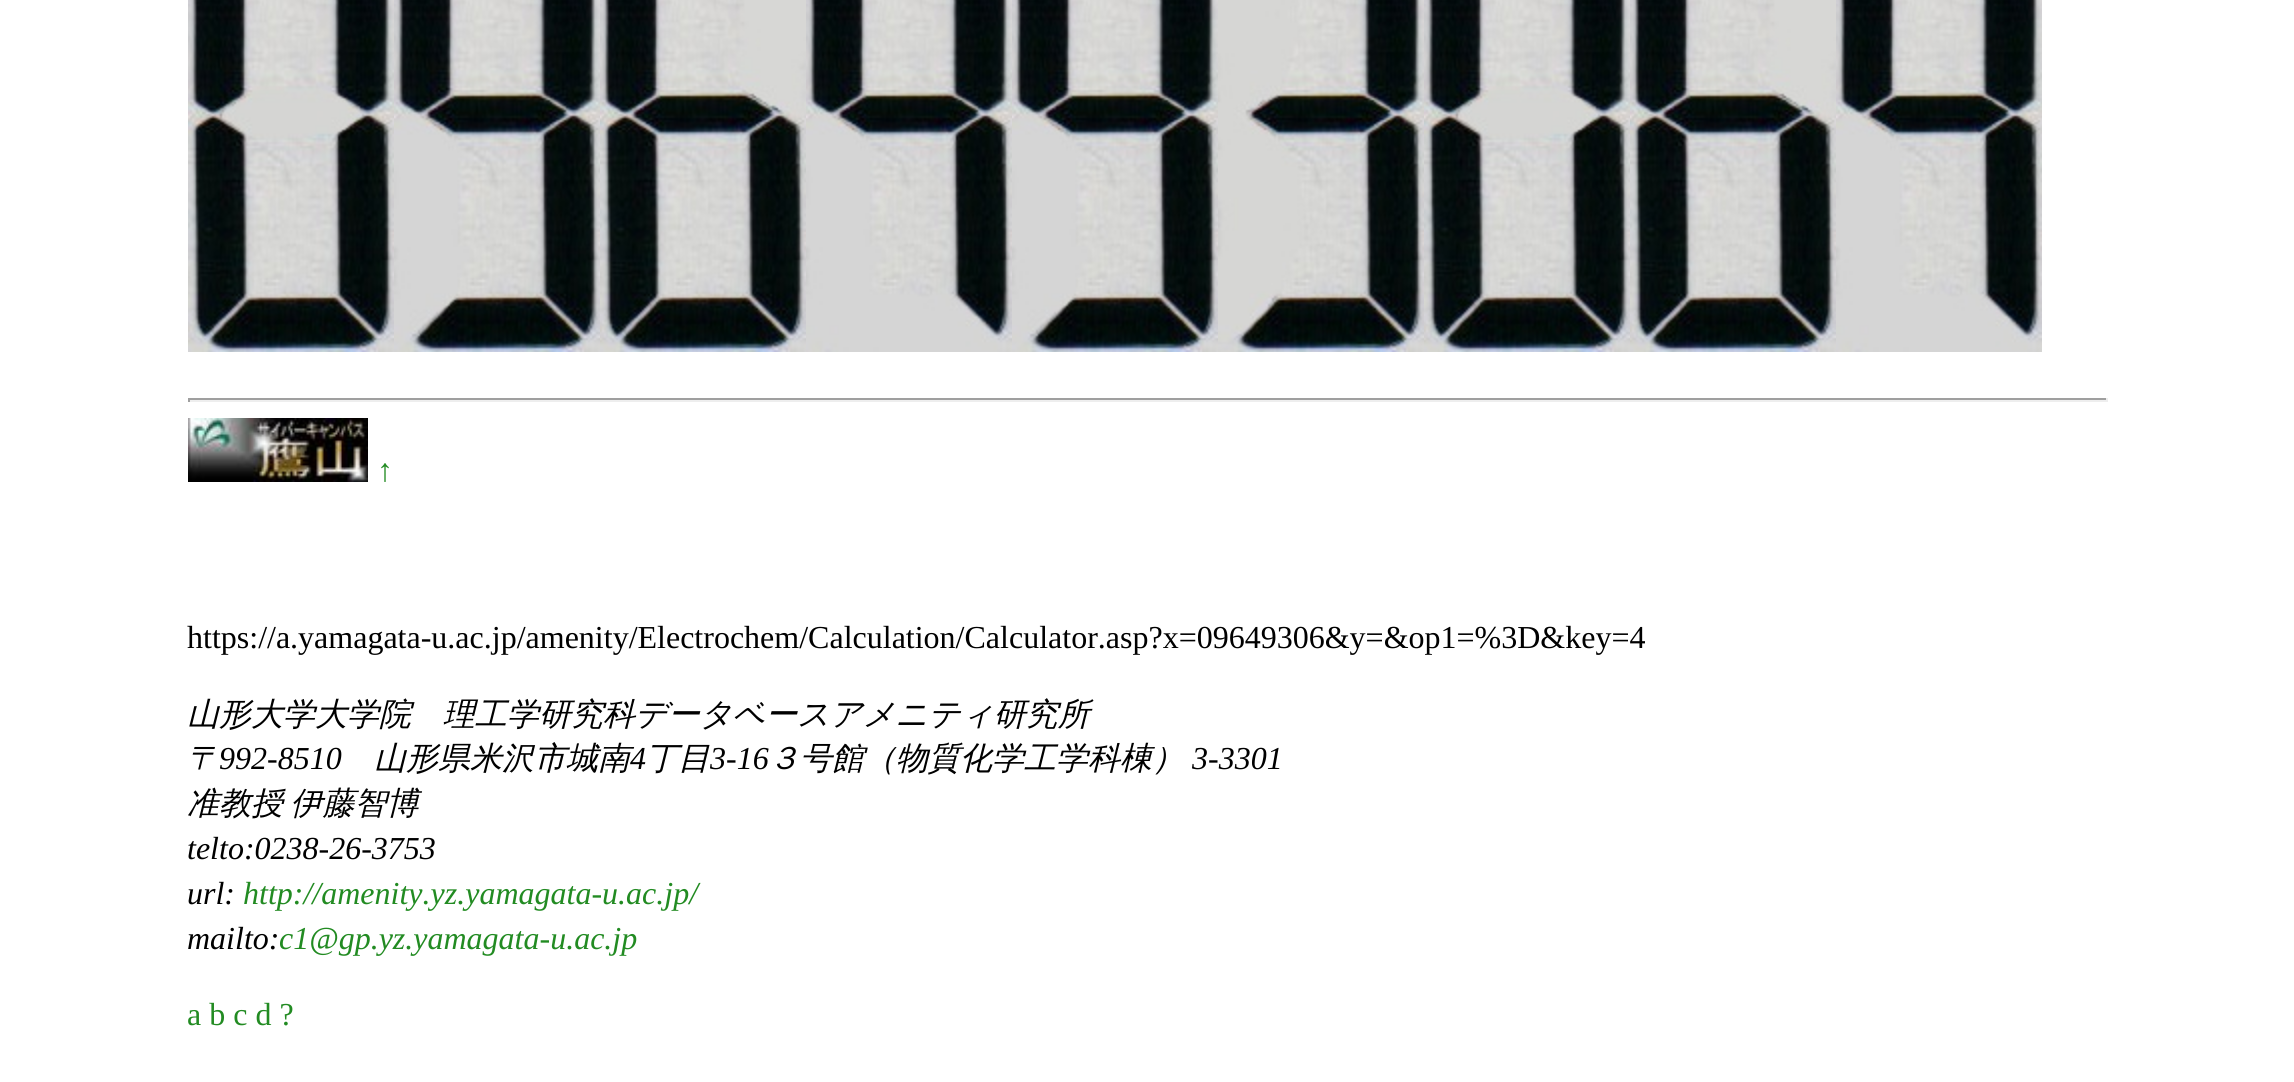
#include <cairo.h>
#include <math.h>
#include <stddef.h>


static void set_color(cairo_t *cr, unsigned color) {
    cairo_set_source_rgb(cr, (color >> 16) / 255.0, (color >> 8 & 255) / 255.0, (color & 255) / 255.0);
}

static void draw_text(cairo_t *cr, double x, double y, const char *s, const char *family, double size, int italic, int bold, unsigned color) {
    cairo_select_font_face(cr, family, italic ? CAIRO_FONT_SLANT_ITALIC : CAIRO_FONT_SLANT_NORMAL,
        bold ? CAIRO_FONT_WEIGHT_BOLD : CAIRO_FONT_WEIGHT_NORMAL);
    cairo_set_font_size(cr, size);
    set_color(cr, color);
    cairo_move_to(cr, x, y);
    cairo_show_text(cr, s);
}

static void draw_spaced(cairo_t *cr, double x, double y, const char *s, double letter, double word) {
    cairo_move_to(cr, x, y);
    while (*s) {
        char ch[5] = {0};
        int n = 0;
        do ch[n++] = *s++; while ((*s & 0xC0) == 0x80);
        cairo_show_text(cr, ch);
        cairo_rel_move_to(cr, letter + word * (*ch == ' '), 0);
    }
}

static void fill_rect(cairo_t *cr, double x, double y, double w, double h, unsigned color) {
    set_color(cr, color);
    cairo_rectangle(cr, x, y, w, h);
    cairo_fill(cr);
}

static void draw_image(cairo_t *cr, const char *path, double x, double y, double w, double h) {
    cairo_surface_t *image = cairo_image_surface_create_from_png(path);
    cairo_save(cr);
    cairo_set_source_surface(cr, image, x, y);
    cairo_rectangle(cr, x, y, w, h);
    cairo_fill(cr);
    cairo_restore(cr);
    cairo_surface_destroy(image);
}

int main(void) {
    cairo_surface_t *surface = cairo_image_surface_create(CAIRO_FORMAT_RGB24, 2294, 1082);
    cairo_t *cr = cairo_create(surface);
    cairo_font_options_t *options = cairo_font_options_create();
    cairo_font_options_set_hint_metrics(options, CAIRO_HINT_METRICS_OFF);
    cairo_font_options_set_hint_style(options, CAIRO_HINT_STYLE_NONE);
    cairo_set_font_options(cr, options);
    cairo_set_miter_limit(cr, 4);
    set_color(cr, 0xFFFFFF);
    cairo_paint(cr);
    draw_image(cr, "assets/img1.png", 188, 0, 206, 352);
    draw_image(cr, "assets/img2.png", 394, 0, 206, 352);
    draw_image(cr, "assets/img3.png", 600, 0, 206, 352);
    draw_image(cr, "assets/img4.png", 806, 0, 206, 352);
    draw_image(cr, "assets/img2.png", 1012, 0, 206, 352);
    draw_image(cr, "assets/img5.png", 1218, 0, 206, 352);
    draw_image(cr, "assets/img1.png", 1424, 0, 206, 352);
    draw_image(cr, "assets/img3.png", 1630, 0, 206, 352);
    draw_image(cr, "assets/img4.png", 1836, 0, 206, 352);
    fill_rect(cr, 188, 398, 1920, 2, 0x9F9F9F);
    fill_rect(cr, 2106, 398, 2, 4, 0xEEEEEE);
    fill_rect(cr, 188, 400, 1920, 2, 0xEEEEEE);
    fill_rect(cr, 188, 398, 2, 4, 0x9F9F9F);
    draw_image(cr, "assets/img6.png", 188, 418, 180, 64);
    draw_text(cr, 377, 481, "↑", "Liberation Serif", 32, 0, 0, 0x228B22);
    draw_text(cr, 187, 648, "https://a.yamagata-u.ac.jp/amenity/Electrochem/Calculation/Calculator.asp?x=09649306&y=&op1=%3D&key=4", "Liberation Serif", 32, 0, 0, 0x000000);
    draw_text(cr, 187, 725, "山形大学大学院　理工学研究科データベースアメニティ研究所", "WenQuanYi Zen Hei Medium", 32, 1, 0, 0x000000);
    draw_text(cr, 187, 769, "〒", "WenQuanYi Zen Hei Medium", 32, 1, 0, 0x000000);
    draw_text(cr, 219, 769, "992-8510", "Liberation Serif", 32, 1, 0, 0x000000);
    draw_text(cr, 374, 769, "山形県米沢市城南", "WenQuanYi Zen Hei Medium", 32, 1, 0, 0x000000);
    draw_text(cr, 630, 769, "4", "Liberation Serif", 32, 1, 0, 0x000000);
    draw_text(cr, 646, 769, "丁目", "WenQuanYi Zen Hei Medium", 32, 1, 0, 0x000000);
    draw_text(cr, 710, 769, "3-16", "Liberation Serif", 32, 1, 0, 0x000000);
    draw_text(cr, 768, 769, "３号館（物質化学工学科棟）", "WenQuanYi Zen Hei Medium", 32, 1, 0, 0x000000);
    draw_text(cr, 1192, 769, "3-3301", "Liberation Serif", 32, 1, 0, 0x000000);
    cairo_select_font_face(cr, "WenQuanYi Zen Hei Medium", CAIRO_FONT_SLANT_ITALIC, CAIRO_FONT_WEIGHT_NORMAL);
    draw_spaced(cr, 187, 814, "准教授 伊藤智博", 0, -2);
    draw_text(cr, 187, 859, "telto:0238-26-3753", "Liberation Serif", 32, 1, 0, 0x000000);
    draw_text(cr, 187, 904, "url:", "Liberation Serif", 32, 1, 0, 0x000000);
    draw_text(cr, 243, 904, "http://amenity.yz.yamagata-u.ac.jp/", "Liberation Serif", 32, 1, 0, 0x228B22);
    draw_text(cr, 187, 949, "mailto:", "Liberation Serif", 32, 1, 0, 0x000000);
    draw_text(cr, 279, 949, "c1@gp.yz.yamagata-u.ac.jp", "Liberation Serif", 32, 1, 0, 0x228B22);
    draw_text(cr, 187, 1025, "a b c d ?", "Liberation Serif", 32, 0, 0, 0x228B22);
    cairo_surface_write_to_png(surface, "output.png");
    cairo_font_options_destroy(options);
    cairo_destroy(cr);
    cairo_surface_destroy(surface);
    return 0;
}
